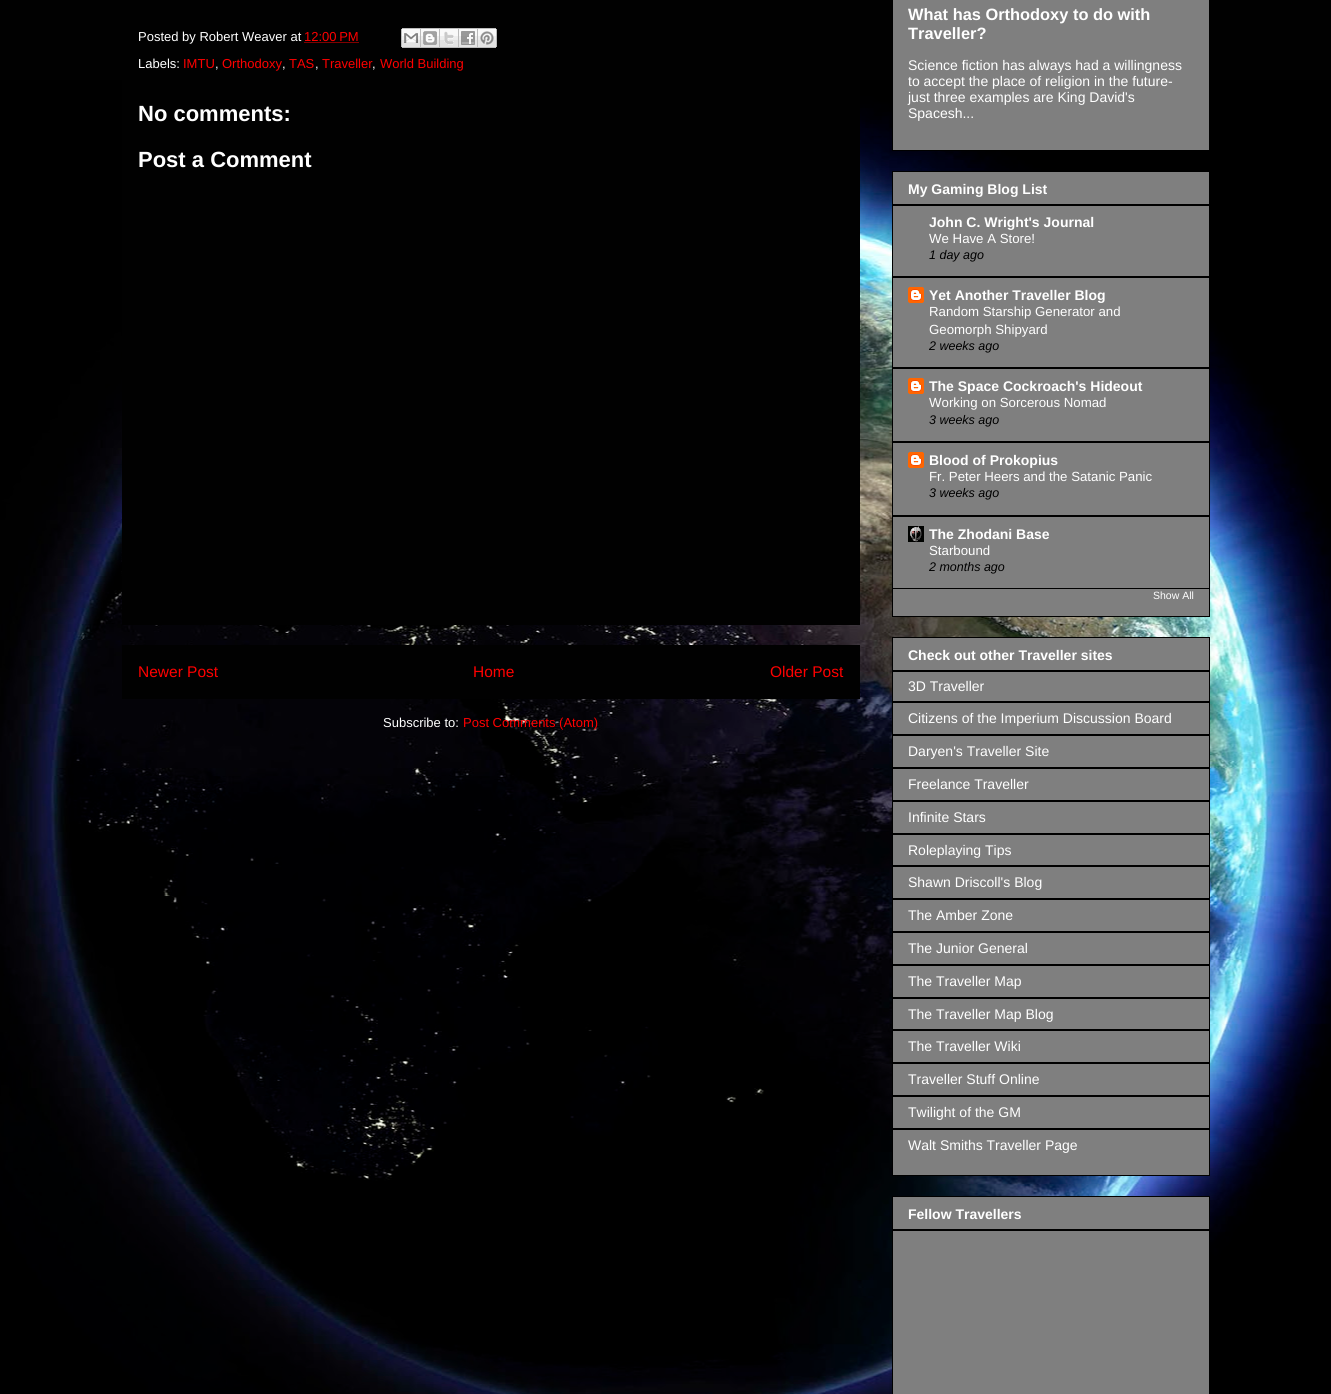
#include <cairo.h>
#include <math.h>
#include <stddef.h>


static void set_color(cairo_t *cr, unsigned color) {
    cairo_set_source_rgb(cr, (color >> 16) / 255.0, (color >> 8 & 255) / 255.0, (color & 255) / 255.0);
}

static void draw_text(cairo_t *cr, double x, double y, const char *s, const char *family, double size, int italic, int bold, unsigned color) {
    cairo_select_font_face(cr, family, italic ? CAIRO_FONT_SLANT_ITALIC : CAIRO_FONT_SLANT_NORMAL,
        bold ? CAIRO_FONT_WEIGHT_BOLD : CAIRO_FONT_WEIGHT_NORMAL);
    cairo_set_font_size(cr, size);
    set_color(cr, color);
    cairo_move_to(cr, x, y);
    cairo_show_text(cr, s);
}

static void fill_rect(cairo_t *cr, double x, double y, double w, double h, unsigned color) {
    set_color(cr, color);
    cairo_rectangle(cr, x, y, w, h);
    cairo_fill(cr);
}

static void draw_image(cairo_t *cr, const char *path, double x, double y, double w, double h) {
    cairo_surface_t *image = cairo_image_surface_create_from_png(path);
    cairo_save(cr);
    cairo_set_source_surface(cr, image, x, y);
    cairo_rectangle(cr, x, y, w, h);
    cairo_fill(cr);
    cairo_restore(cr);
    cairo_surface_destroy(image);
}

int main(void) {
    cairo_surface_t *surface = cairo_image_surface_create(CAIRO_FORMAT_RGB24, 1331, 1394);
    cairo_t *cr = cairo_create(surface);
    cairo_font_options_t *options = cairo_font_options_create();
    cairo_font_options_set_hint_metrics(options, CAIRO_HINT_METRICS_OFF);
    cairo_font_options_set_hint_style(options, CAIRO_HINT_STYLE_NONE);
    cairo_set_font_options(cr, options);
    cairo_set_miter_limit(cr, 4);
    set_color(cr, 0x010101);
    cairo_paint(cr);
    draw_image(cr, "assets/img1.png", 0, 80, 1331, 1314);
    fill_rect(cr, 122, 80, 738, 545, 0x010101);
    draw_text(cr, 138, 41, "Posted by Robert Weaver at", "Liberation Sans", 13, 0, 0, 0xFFFFFF);
    draw_text(cr, 304, 41, "12:00 PM", "Liberation Sans", 13, 0, 0, 0xFF0000);
    cairo_new_path(cr);
    cairo_move_to(cr, 304.5, 42.5);
    cairo_line_to(cr, 359, 42.5);
    cairo_set_line_width(cr, 1);
    cairo_set_dash(cr, (double[]){1, 1}, 2, 0);
    cairo_stroke(cr);
    draw_image(cr, "assets/img2.png", 401, 28, 20, 20);
    draw_image(cr, "assets/img3.png", 421, 28, 19, 20);
    draw_image(cr, "assets/img4.png", 440, 28, 19, 20);
    draw_image(cr, "assets/img5.png", 459, 28, 19, 20);
    draw_image(cr, "assets/img6.png", 478, 28, 19, 20);
    draw_text(cr, 138, 68, "Labels:", "Liberation Sans", 13, 0, 0, 0xFFFFFF);
    draw_text(cr, 183, 68, "IMTU", "Liberation Sans", 13, 0, 0, 0xFF0000);
    draw_text(cr, 215, 68, ",", "Liberation Sans", 13, 0, 0, 0xFFFFFF);
    draw_text(cr, 222, 68, "Orthodoxy", "Liberation Sans", 13, 0, 0, 0xFF0000);
    draw_text(cr, 282, 68, ",", "Liberation Sans", 13, 0, 0, 0xFFFFFF);
    draw_text(cr, 289, 68, "TAS", "Liberation Sans", 13, 0, 0, 0xFF0000);
    draw_text(cr, 315, 68, ",", "Liberation Sans", 13, 0, 0, 0xFFFFFF);
    draw_text(cr, 322, 68, "Traveller", "Liberation Sans", 13, 0, 0, 0xFF0000);
    draw_text(cr, 372, 68, ",", "Liberation Sans", 13, 0, 0, 0xFFFFFF);
    draw_text(cr, 380, 68, "World Building", "Liberation Sans", 13, 0, 0, 0xFF0000);
    draw_text(cr, 138, 121, "No comments:", "Liberation Sans", 22, 0, 1, 0xFFFFFF);
    draw_text(cr, 138, 167, "Post a Comment", "Liberation Sans", 22, 0, 1, 0xFFFFFF);
    fill_rect(cr, 122, 645, 738, 54, 0x010101);
    draw_text(cr, 138, 677, "Newer Post", "Liberation Sans", 15.5, 0, 0, 0xFF0000);
    draw_text(cr, 473, 677, "Home", "Liberation Sans", 15.5, 0, 0, 0xFF0000);
    draw_text(cr, 770, 677, "Older Post", "Liberation Sans", 15.5, 0, 0, 0xFF0000);
    draw_text(cr, 383, 727, "Subscribe to:", "Liberation Sans", 13, 0, 0, 0xFFFFFF);
    draw_text(cr, 463, 727, "Post Comments (Atom)", "Liberation Sans", 13, 0, 0, 0xFF0000);
    set_color(cr, 0x7F7F7F);
    cairo_rectangle(cr, 892.5, -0.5, 317, 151);
    cairo_fill_preserve(cr);
    set_color(cr, 0x000000);
    cairo_set_dash(cr, NULL, 0, 0);
    cairo_stroke(cr);
    draw_text(cr, 908, 20, "What has Orthodoxy to do with", "Liberation Sans", 16.4, 0, 1, 0xFFFFFF);
    draw_text(cr, 908, 39, "Traveller?", "Liberation Sans", 16.4, 0, 1, 0xFFFFFF);
    draw_text(cr, 908, 70, "Science fiction has always had a willingness", "Liberation Sans", 14, 0, 0, 0xFFFFFF);
    draw_text(cr, 908, 86, "to accept the place of religion in the future-", "Liberation Sans", 14, 0, 0, 0xFFFFFF);
    draw_text(cr, 908, 102, "just three examples are King David's", "Liberation Sans", 14, 0, 0, 0xFFFFFF);
    draw_text(cr, 908, 118, "Spacesh...", "Liberation Sans", 14, 0, 0, 0xFFFFFF);
    set_color(cr, 0x7F7F7F);
    cairo_rectangle(cr, 892.5, 171.5, 317, 445);
    cairo_fill_preserve(cr);
    set_color(cr, 0x000000);
    cairo_stroke(cr);
    draw_text(cr, 908, 194, "My Gaming Blog List", "Liberation Sans", 14, 0, 1, 0xFFFFFF);
    fill_rect(cr, 893, 204, 316, 2, 0x000000);
    fill_rect(cr, 893, 276, 316, 2, 0x000000);
    draw_text(cr, 929, 227, "John C. Wright's Journal", "Liberation Sans", 14, 0, 1, 0xFFFFFF);
    draw_text(cr, 929, 243, "We Have A Store!", "Liberation Sans", 13.25, 0, 0, 0xFFFFFF);
    draw_text(cr, 929, 259, "1 day ago", "Liberation Sans", 12.5, 1, 0, 0x000000);
    fill_rect(cr, 893, 367, 316, 2, 0x000000);
    draw_image(cr, "assets/img7.png", 908, 287, 16, 16);
    draw_text(cr, 929, 300, "Yet Another Traveller Blog", "Liberation Sans", 14, 0, 1, 0xFFFFFF);
    draw_text(cr, 929, 316, "Random Starship Generator and", "Liberation Sans", 13.25, 0, 0, 0xFFFFFF);
    draw_text(cr, 929, 334, "Geomorph Shipyard", "Liberation Sans", 13.25, 0, 0, 0xFFFFFF);
    draw_text(cr, 929, 350, "2 weeks ago", "Liberation Sans", 12.5, 1, 0, 0x000000);
    fill_rect(cr, 893, 441, 316, 2, 0x000000);
    draw_image(cr, "assets/img7.png", 908, 378, 16, 16);
    draw_text(cr, 929, 391, "The Space Cockroach's Hideout", "Liberation Sans", 14, 0, 1, 0xFFFFFF);
    draw_text(cr, 929, 407, "Working on Sorcerous Nomad", "Liberation Sans", 13.25, 0, 0, 0xFFFFFF);
    draw_text(cr, 929, 424, "3 weeks ago", "Liberation Sans", 12.5, 1, 0, 0x000000);
    fill_rect(cr, 893, 515, 316, 2, 0x000000);
    draw_image(cr, "assets/img7.png", 908, 452, 16, 16);
    draw_text(cr, 929, 465, "Blood of Prokopius", "Liberation Sans", 14, 0, 1, 0xFFFFFF);
    draw_text(cr, 929, 481, "Fr. Peter Heers and the Satanic Panic", "Liberation Sans", 13.25, 0, 0, 0xFFFFFF);
    draw_text(cr, 929, 497, "3 weeks ago", "Liberation Sans", 12.5, 1, 0, 0x000000);
    fill_rect(cr, 893, 588, 316, 1, 0x000000);
    draw_image(cr, "assets/img8.png", 908, 526, 16, 16);
    draw_text(cr, 929, 539, "The Zhodani Base", "Liberation Sans", 14, 0, 1, 0xFFFFFF);
    draw_text(cr, 929, 555, "Starbound", "Liberation Sans", 13.25, 0, 0, 0xFFFFFF);
    draw_text(cr, 929, 571, "2 months ago", "Liberation Sans", 12.5, 1, 0, 0x000000);
    draw_text(cr, 1153, 599, "Show All", "Liberation Sans", 10.5, 0, 0, 0xFFFFFF);
    set_color(cr, 0x7F7F7F);
    cairo_rectangle(cr, 892.5, 637.5, 317, 538);
    cairo_fill_preserve(cr);
    set_color(cr, 0x000000);
    cairo_stroke(cr);
    draw_text(cr, 908, 660, "Check out other Traveller sites", "Liberation Sans", 14, 0, 1, 0xFFFFFF);
    fill_rect(cr, 893, 670, 316, 2, 0x000000);
    fill_rect(cr, 893, 701, 316, 2, 0x000000);
    draw_text(cr, 908, 691, "3D Traveller", "Liberation Sans", 14, 0, 0, 0xFFFFFF);
    fill_rect(cr, 893, 734, 316, 2, 0x000000);
    draw_text(cr, 908, 723, "Citizens of the Imperium Discussion Board", "Liberation Sans", 14, 0, 0, 0xFFFFFF);
    fill_rect(cr, 893, 767, 316, 2, 0x000000);
    draw_text(cr, 908, 756, "Daryen's Traveller Site", "Liberation Sans", 14, 0, 0, 0xFFFFFF);
    fill_rect(cr, 893, 800, 316, 2, 0x000000);
    draw_text(cr, 908, 789, "Freelance Traveller", "Liberation Sans", 14, 0, 0, 0xFFFFFF);
    fill_rect(cr, 893, 833, 316, 2, 0x000000);
    draw_text(cr, 908, 822, "Infinite Stars", "Liberation Sans", 14, 0, 0, 0xFFFFFF);
    fill_rect(cr, 893, 865, 316, 2, 0x000000);
    draw_text(cr, 908, 855, "Roleplaying Tips", "Liberation Sans", 14, 0, 0, 0xFFFFFF);
    fill_rect(cr, 893, 898, 316, 2, 0x000000);
    draw_text(cr, 908, 887, "Shawn Driscoll's Blog", "Liberation Sans", 14, 0, 0, 0xFFFFFF);
    fill_rect(cr, 893, 931, 316, 2, 0x000000);
    draw_text(cr, 908, 920, "The Amber Zone", "Liberation Sans", 14, 0, 0, 0xFFFFFF);
    fill_rect(cr, 893, 964, 316, 2, 0x000000);
    draw_text(cr, 908, 953, "The Junior General", "Liberation Sans", 14, 0, 0, 0xFFFFFF);
    fill_rect(cr, 893, 997, 316, 2, 0x000000);
    draw_text(cr, 908, 986, "The Traveller Map", "Liberation Sans", 14, 0, 0, 0xFFFFFF);
    fill_rect(cr, 893, 1029, 316, 2, 0x000000);
    draw_text(cr, 908, 1019, "The Traveller Map Blog", "Liberation Sans", 14, 0, 0, 0xFFFFFF);
    fill_rect(cr, 893, 1062, 316, 2, 0x000000);
    draw_text(cr, 908, 1051, "The Traveller Wiki", "Liberation Sans", 14, 0, 0, 0xFFFFFF);
    fill_rect(cr, 893, 1095, 316, 2, 0x000000);
    draw_text(cr, 908, 1084, "Traveller Stuff Online", "Liberation Sans", 14, 0, 0, 0xFFFFFF);
    fill_rect(cr, 893, 1128, 316, 2, 0x000000);
    draw_text(cr, 908, 1117, "Twilight of the GM", "Liberation Sans", 14, 0, 0, 0xFFFFFF);
    draw_text(cr, 908, 1150, "Walt Smiths Traveller Page", "Liberation Sans", 14, 0, 0, 0xFFFFFF);
    set_color(cr, 0x7F7F7F);
    cairo_rectangle(cr, 892.5, 1196.5, 317, 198);
    cairo_fill_preserve(cr);
    set_color(cr, 0x000000);
    cairo_stroke(cr);
    draw_text(cr, 908, 1219, "Fellow Travellers", "Liberation Sans", 14, 0, 1, 0xFFFFFF);
    fill_rect(cr, 893, 1229, 316, 2, 0x000000);
    cairo_surface_write_to_png(surface, "output.png");
    cairo_font_options_destroy(options);
    cairo_destroy(cr);
    cairo_surface_destroy(surface);
    return 0;
}
